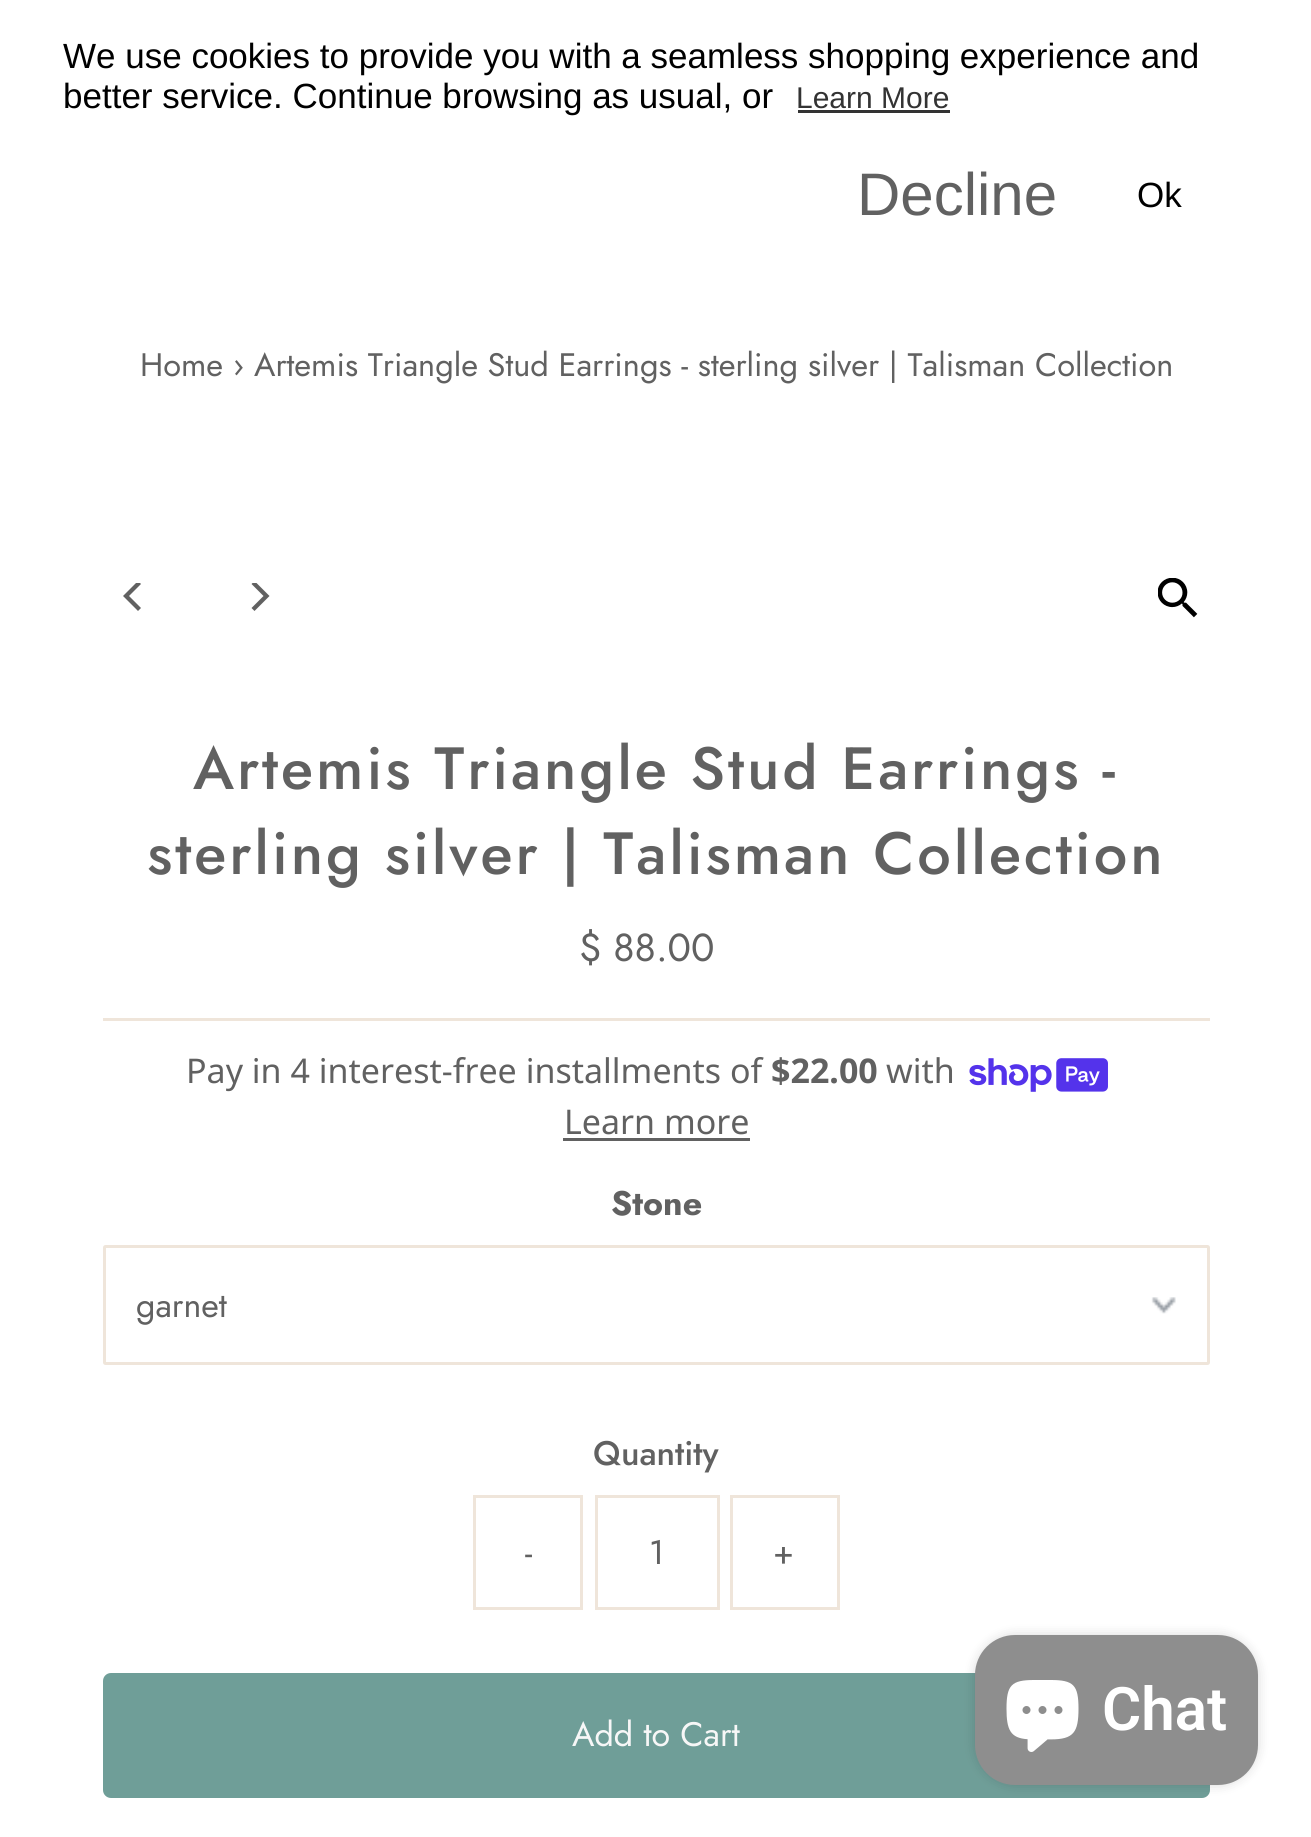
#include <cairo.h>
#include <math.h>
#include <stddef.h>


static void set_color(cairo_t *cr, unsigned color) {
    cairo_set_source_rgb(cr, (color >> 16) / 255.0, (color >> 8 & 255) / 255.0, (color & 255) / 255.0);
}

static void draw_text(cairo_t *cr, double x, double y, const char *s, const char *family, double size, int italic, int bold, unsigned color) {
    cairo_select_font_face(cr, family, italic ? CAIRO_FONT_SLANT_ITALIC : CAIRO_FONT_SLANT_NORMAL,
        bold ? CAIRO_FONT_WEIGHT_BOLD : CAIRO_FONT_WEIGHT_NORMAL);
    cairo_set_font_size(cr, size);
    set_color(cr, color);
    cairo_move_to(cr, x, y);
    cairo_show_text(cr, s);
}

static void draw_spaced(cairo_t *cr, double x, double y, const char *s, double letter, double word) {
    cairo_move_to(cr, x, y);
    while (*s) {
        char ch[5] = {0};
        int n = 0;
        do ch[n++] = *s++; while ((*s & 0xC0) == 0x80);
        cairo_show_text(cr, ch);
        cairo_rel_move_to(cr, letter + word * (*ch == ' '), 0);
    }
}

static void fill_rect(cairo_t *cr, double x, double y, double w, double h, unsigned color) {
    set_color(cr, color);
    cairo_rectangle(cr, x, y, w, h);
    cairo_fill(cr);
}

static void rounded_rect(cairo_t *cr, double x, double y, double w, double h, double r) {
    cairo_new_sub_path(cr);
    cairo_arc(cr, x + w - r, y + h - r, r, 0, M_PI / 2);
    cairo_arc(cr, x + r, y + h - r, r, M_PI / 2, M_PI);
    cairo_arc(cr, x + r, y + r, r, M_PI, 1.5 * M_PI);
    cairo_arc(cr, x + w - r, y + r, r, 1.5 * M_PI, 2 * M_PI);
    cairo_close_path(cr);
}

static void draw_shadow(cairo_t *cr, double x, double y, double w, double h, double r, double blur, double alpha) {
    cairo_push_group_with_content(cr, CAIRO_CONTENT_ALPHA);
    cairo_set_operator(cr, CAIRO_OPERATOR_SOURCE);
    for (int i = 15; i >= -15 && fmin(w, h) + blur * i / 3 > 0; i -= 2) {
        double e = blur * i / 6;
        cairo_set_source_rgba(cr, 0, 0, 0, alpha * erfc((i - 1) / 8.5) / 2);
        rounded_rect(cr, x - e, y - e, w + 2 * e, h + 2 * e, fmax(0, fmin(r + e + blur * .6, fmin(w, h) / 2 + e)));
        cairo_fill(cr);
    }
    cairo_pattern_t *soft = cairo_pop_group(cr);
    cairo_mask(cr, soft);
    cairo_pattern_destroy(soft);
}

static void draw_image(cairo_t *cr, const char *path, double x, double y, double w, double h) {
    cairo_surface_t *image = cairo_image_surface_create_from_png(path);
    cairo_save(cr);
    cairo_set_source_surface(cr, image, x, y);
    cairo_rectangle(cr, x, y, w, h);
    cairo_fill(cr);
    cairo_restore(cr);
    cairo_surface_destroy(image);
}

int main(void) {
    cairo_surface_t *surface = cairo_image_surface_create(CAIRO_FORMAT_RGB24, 1311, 1837);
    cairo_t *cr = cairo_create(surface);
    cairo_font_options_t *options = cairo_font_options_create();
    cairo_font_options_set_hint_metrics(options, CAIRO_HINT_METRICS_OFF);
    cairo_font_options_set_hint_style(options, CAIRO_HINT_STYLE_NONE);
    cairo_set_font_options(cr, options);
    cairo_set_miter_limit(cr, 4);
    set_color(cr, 0xFFFFFF);
    cairo_paint(cr);
    draw_text(cr, 63, 68, "We use cookies to provide you with a seamless shopping experience and", "Liberation Sans", 35, 0, 0, 0x000000);
    draw_text(cr, 63, 108, "better service. Continue browsing as usual, or", "Liberation Sans", 35, 0, 0, 0x000000);
    draw_text(cr, 796, 108, "Learn More", "Liberation Sans", 30, 0, 0, 0x333333);
    fill_rect(cr, 798, 110, 152, 3, 0x333333);
    draw_text(cr, 857, 215, "Decline", "Liberation Sans", 60, 0, 0, 0x616161);
    draw_text(cr, 1137, 207, "Ok", "Liberation Sans", 35, 0, 0, 0x000000);
    draw_text(cr, 140, 376, "Home › Artemis Triangle Stud Earrings - sterling silver | Talisman Collection", "Jost", 32.5, 0, 0, 0x616161);
    cairo_save(cr);
    cairo_rectangle(cr, 120, 583, 30, 30);
    cairo_clip(cr);
    cairo_new_path(cr);
    cairo_move_to(cr, 123, 596);
    cairo_line_to(cr, 138, 611);
    cairo_line_to(cr, 141, 608);
    cairo_line_to(cr, 129, 596);
    cairo_line_to(cr, 141, 584);
    cairo_line_to(cr, 138, 581);
    cairo_close_path(cr);
    cairo_fill(cr);
    cairo_restore(cr);
    cairo_save(cr);
    cairo_rectangle(cr, 243, 583, 30, 30);
    cairo_clip(cr);
    cairo_new_path(cr);
    cairo_move_to(cr, 269.5, 596);
    cairo_line_to(cr, 254.5, 581);
    cairo_line_to(cr, 251.5, 584);
    cairo_line_to(cr, 263.5, 596);
    cairo_line_to(cr, 251.5, 608);
    cairo_line_to(cr, 254.5, 611);
    cairo_close_path(cr);
    cairo_fill(cr);
    cairo_restore(cr);
    draw_image(cr, "assets/img1.png", 1158, 578, 40, 40);
    cairo_select_font_face(cr, "Jost Medium", CAIRO_FONT_SLANT_NORMAL, CAIRO_FONT_WEIGHT_NORMAL);
    cairo_set_font_size(cr, 59.5);
    draw_spaced(cr, 193, 789, "Artemis Triangle Stud Earrings -", 2.95, 0);
    draw_spaced(cr, 147, 874, "sterling silver | Talisman Collection", 2.95, 0);
    fill_rect(cr, 103, 1018, 1107, 3, 0xEFE5DA);
    draw_text(cr, 579, 961, "$ 88.00", "Jost", 39, 0, 0, 0x616161);
    draw_text(cr, 186, 1083, "Pay in 4 interest-free installments of", "Noto Sans", 34, 0, 0, 0x616161);
    draw_text(cr, 771, 1083, "$22.00", "Noto Sans", 34, 0, 1, 0x616161);
    draw_text(cr, 886, 1083, "with", "Noto Sans", 34, 0, 0, 0x616161);
    draw_image(cr, "assets/img2.png", 969, 1058, 139, 34);
    draw_text(cr, 564, 1134, "Learn more", "Noto Sans", 34, 0, 0, 0x616161);
    fill_rect(cr, 563, 1138, 187, 3, 0x616161);
    draw_text(cr, 611, 1215, "Stone", "Jost", 34, 0, 1, 0x616161);
    draw_image(cr, "assets/img3.png", 1151, 1297, 25, 17);
    rounded_rect(cr, 104.5, 1246.5, 1104, 117, 1);
    set_color(cr, 0xEFE5DA);
    cairo_set_line_width(cr, 3);
    cairo_stroke(cr);
    draw_text(cr, 136, 1317, "garnet", "Jost", 34, 0, 0, 0x616161);
    draw_text(cr, 593, 1465, "Quantity", "Jost Medium", 34, 0, 0, 0x616161);
    cairo_rectangle(cr, 474.5, 1496.5, 107, 112);
    set_color(cr, 0xEFE5DA);
    cairo_stroke(cr);
    draw_text(cr, 525, 1564, "-", "Jost", 34, 0, 0, 0x616161);
    cairo_rectangle(cr, 596.5, 1496.5, 122, 112);
    set_color(cr, 0xEFE5DA);
    cairo_stroke(cr);
    draw_text(cr, 649, 1564, "1", "Jost", 34, 0, 0, 0x616161);
    cairo_rectangle(cr, 731.5, 1496.5, 107, 112);
    set_color(cr, 0xEFE5DA);
    cairo_stroke(cr);
    draw_text(cr, 773, 1564, "+", "Jost", 34, 0, 0, 0x616161);
    set_color(cr, 0x6F9E98);
    rounded_rect(cr, 103, 1673, 1107, 125, 8);
    cairo_fill(cr);
    draw_text(cr, 572, 1746, "Add to Cart", "Jost", 34, 0, 0, 0xF7F7F7);
    set_color(cr, 0x000000);
    draw_shadow(cr, 975, 1635, 283, 150, 40, 6, 0.15);
    set_color(cr, 0x8E8E8E);
    rounded_rect(cr, 975, 1635, 283, 150, 40);
    cairo_fill(cr);
    draw_image(cr, "assets/img4.png", 1006, 1680, 73, 72);
    draw_text(cr, 1102, 1730, "Chat", "Roboto SemiBold", 60, 0, 0, 0xFFFFFF);
    cairo_surface_write_to_png(surface, "output.png");
    cairo_font_options_destroy(options);
    cairo_destroy(cr);
    cairo_surface_destroy(surface);
    return 0;
}
